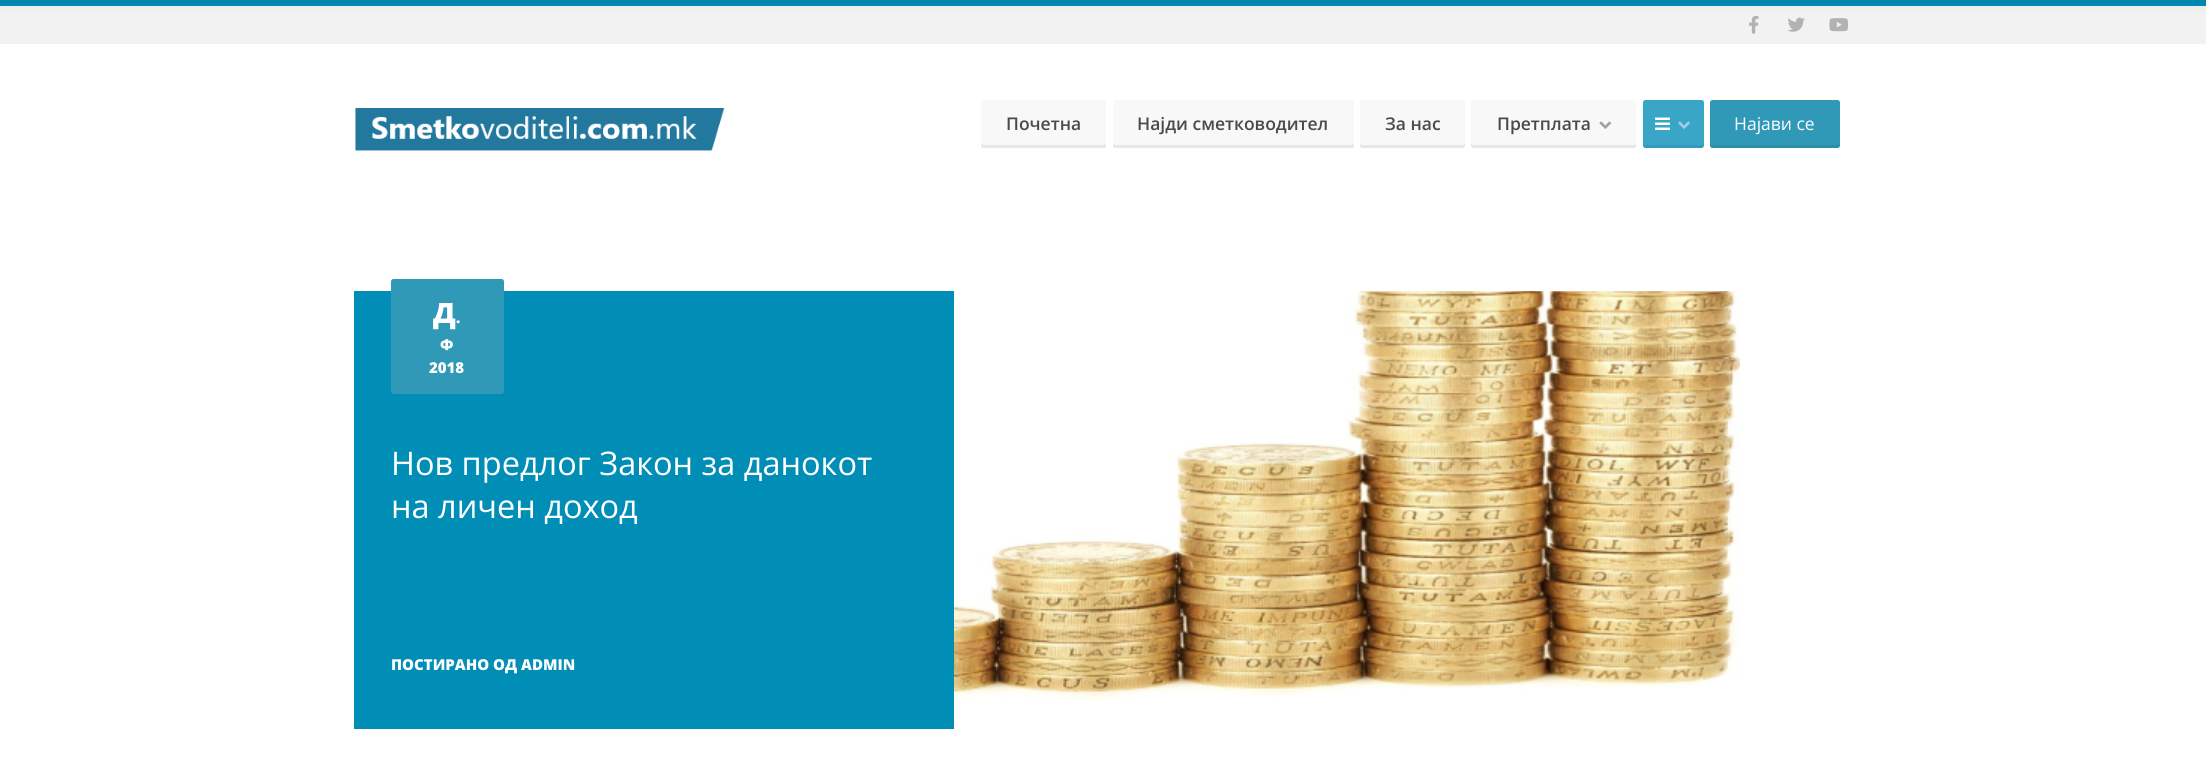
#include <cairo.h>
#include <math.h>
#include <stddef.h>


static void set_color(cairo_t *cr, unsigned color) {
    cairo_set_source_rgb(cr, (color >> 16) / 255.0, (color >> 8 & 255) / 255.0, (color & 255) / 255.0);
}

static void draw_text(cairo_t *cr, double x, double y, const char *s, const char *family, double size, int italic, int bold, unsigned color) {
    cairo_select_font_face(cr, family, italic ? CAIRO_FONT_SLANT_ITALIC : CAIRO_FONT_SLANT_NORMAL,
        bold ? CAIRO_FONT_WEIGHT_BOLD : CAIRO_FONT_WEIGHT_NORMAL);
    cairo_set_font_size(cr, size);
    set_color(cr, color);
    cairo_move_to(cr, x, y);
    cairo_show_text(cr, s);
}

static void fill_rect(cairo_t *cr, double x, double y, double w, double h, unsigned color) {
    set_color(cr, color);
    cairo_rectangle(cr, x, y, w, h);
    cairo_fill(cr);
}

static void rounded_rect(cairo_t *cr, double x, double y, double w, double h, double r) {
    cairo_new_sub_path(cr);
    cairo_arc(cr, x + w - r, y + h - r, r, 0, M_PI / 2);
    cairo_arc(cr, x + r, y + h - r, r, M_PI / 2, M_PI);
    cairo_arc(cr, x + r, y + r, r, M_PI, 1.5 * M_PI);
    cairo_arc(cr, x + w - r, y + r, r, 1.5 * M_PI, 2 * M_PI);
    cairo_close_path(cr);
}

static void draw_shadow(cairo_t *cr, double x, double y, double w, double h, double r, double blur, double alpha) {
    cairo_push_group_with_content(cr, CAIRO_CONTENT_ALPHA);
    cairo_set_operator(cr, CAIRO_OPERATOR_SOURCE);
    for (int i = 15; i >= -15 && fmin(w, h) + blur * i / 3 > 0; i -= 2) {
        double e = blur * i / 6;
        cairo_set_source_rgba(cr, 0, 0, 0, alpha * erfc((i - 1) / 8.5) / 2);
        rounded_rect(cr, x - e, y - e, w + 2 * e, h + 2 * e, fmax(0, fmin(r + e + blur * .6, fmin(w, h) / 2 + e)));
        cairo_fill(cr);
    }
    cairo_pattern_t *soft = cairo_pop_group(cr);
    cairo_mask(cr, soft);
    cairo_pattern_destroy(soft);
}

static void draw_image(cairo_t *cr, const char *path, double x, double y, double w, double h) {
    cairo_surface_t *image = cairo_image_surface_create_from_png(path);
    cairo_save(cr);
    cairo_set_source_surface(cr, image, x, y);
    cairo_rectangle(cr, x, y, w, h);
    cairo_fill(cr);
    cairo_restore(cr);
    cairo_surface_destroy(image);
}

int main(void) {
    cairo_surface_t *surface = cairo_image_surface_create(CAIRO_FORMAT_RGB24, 2206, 769);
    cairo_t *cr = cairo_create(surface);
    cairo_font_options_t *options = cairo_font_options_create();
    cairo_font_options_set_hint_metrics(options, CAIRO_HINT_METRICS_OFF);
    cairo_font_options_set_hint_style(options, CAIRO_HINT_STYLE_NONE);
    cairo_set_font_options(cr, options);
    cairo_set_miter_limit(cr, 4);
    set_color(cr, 0xFFFFFF);
    cairo_paint(cr);
    fill_rect(cr, 0, 6, 2206, 38, 0xF2F2F2);
    fill_rect(cr, 0, 0, 2206, 6, 0x008EB7);
    draw_image(cr, "assets/img1.png", 1749, 16, 10, 18);
    draw_image(cr, "assets/img2.png", 1787, 17, 18, 15);
    draw_image(cr, "assets/img3.png", 1829, 18, 20, 14);
    set_color(cr, 0x000000);
    draw_shadow(cr, 0, -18, 2206, 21, 0, 6, 0.1);
    draw_image(cr, "assets/img4.png", 355, 108, 370, 43);
    set_color(cr, 0xF8F8F8);
    rounded_rect(cr, 981, 100, 125, 48, 2.5);
    cairo_fill(cr);
    set_color(cr, 0xE7E7E7);
    cairo_new_path(cr);
    cairo_move_to(cr, 981, 142);
    cairo_line_to(cr, 981, 146);
    cairo_curve_to(cr, 981, 147, 982, 148, 984, 148);
    cairo_line_to(cr, 1104, 148);
    cairo_curve_to(cr, 1105, 148, 1106, 147, 1106, 146);
    cairo_line_to(cr, 1106, 142);
    cairo_curve_to(cr, 1106, 144, 1105, 145, 1104, 145);
    cairo_line_to(cr, 984, 145);
    cairo_curve_to(cr, 982, 145, 981, 144, 981, 142);
    cairo_close_path(cr);
    cairo_fill(cr);
    draw_text(cr, 1006, 130, "Почетна", "Open Sans SemiBold", 17.5, 0, 0, 0x4A4A4A);
    set_color(cr, 0xF8F8F8);
    rounded_rect(cr, 1113, 100, 241, 48, 2.5);
    cairo_fill(cr);
    set_color(cr, 0xE7E7E7);
    cairo_new_path(cr);
    cairo_move_to(cr, 1113, 144);
    cairo_line_to(cr, 1113, 146);
    cairo_curve_to(cr, 1113, 147, 1114, 148, 1116, 148);
    cairo_line_to(cr, 1352, 148);
    cairo_curve_to(cr, 1353, 148, 1354, 147, 1354, 146);
    cairo_line_to(cr, 1354, 142);
    cairo_curve_to(cr, 1354, 144, 1353, 145, 1351, 145);
    cairo_line_to(cr, 1115, 145);
    cairo_close_path(cr);
    cairo_fill(cr);
    draw_text(cr, 1137, 130, "Најди сметководител", "Open Sans SemiBold", 17.5, 0, 0, 0x4A4A4A);
    set_color(cr, 0xF8F8F8);
    rounded_rect(cr, 1360, 100, 105, 48, 2.5);
    cairo_fill(cr);
    set_color(cr, 0xE7E7E7);
    cairo_new_path(cr);
    cairo_move_to(cr, 1360, 142);
    cairo_line_to(cr, 1360, 146);
    cairo_curve_to(cr, 1360, 147, 1361, 148, 1362, 148);
    cairo_line_to(cr, 1462, 148);
    cairo_curve_to(cr, 1464, 148, 1465, 147, 1465, 146);
    cairo_line_to(cr, 1465, 142);
    cairo_curve_to(cr, 1465, 144, 1464, 145, 1462, 145);
    cairo_line_to(cr, 1362, 145);
    cairo_curve_to(cr, 1361, 145, 1360, 144, 1360, 142);
    cairo_close_path(cr);
    cairo_fill(cr);
    draw_text(cr, 1385, 130, "За нас", "Open Sans SemiBold", 17.5, 0, 0, 0x4A4A4A);
    set_color(cr, 0xF8F8F8);
    rounded_rect(cr, 1471, 100, 165, 48, 2.5);
    cairo_fill(cr);
    set_color(cr, 0xE7E7E7);
    cairo_new_path(cr);
    cairo_move_to(cr, 1471, 142);
    cairo_line_to(cr, 1471, 146);
    cairo_curve_to(cr, 1471, 147, 1472, 148, 1474, 148);
    cairo_line_to(cr, 1634, 148);
    cairo_curve_to(cr, 1635, 148, 1636, 147, 1636, 146);
    cairo_line_to(cr, 1636, 142);
    cairo_curve_to(cr, 1636, 144, 1635, 145, 1634, 145);
    cairo_line_to(cr, 1474, 145);
    cairo_curve_to(cr, 1472, 145, 1471, 144, 1471, 142);
    cairo_close_path(cr);
    cairo_fill(cr);
    draw_text(cr, 1497, 130, "Претплата", "Open Sans SemiBold", 17.5, 0, 0, 0x4A4A4A);
    draw_image(cr, "assets/img5.png", 1599, 121, 13, 8);
    set_color(cr, 0x39A5C7);
    rounded_rect(cr, 1643, 100, 61, 48, 2.5);
    cairo_fill(cr);
    cairo_set_source_rgba(cr, 0, 0, 0, 0.07);
    cairo_new_path(cr);
    cairo_move_to(cr, 1643, 144);
    cairo_curve_to(cr, 1643, 150, 1650, 148, 1655, 148);
    cairo_line_to(cr, 1692, 148);
    cairo_curve_to(cr, 1702, 148, 1704, 150, 1704, 142);
    cairo_curve_to(cr, 1704, 144, 1703, 145, 1701, 145);
    cairo_line_to(cr, 1645, 145);
    cairo_close_path(cr);
    cairo_fill(cr);
    draw_image(cr, "assets/img6.png", 1655, 117, 15, 13);
    draw_image(cr, "assets/img7.png", 1678, 121, 12, 8);
    set_color(cr, 0x2F99B7);
    rounded_rect(cr, 1710, 100, 130, 48, 2.5);
    cairo_fill(cr);
    cairo_set_source_rgba(cr, 0, 0, 0, 0.07);
    cairo_new_path(cr);
    cairo_move_to(cr, 1710, 142);
    cairo_line_to(cr, 1710, 146);
    cairo_curve_to(cr, 1710, 147, 1711, 148, 1712, 148);
    cairo_line_to(cr, 1838, 148);
    cairo_curve_to(cr, 1839, 148, 1840, 147, 1840, 146);
    cairo_line_to(cr, 1840, 142);
    cairo_curve_to(cr, 1840, 144, 1839, 145, 1838, 145);
    cairo_line_to(cr, 1712, 145);
    cairo_curve_to(cr, 1711, 145, 1710, 144, 1710, 142);
    cairo_close_path(cr);
    cairo_fill(cr);
    draw_text(cr, 1734, 130, "Најави се", "Open Sans", 17.5, 0, 0, 0xFFFFFF);
    fill_rect(cr, 354, 291, 600, 438, 0x008EB7);
    set_color(cr, 0x2F99B7);
    rounded_rect(cr, 391, 279, 113, 115, 2.5);
    cairo_fill(cr);
    draw_text(cr, 433, 323, "Д", "Open Sans ExtraBold", 28, 0, 0, 0xFFFFFF);
    draw_text(cr, 456, 323, ".", "Open Sans ExtraBold", 15, 0, 0, 0xFFFFFF);
    draw_text(cr, 440, 350, "Ф", "Open Sans ExtraBold", 15, 0, 0, 0xFFFFFF);
    draw_text(cr, 429, 373, "2018", "Open Sans ExtraBold", 15, 0, 0, 0xFFFFFF);
    draw_text(cr, 391, 475, "Нов предлог Закон за данокот", "Open Sans", 32.5, 0, 0, 0xFFFFFF);
    draw_text(cr, 391, 518, "на личен доход", "Open Sans", 32.5, 0, 0, 0xFFFFFF);
    draw_text(cr, 391, 670, "ПОСТИРАНО ОД ADMIN", "Open Sans ExtraBold", 15, 0, 0, 0xFFFFFF);
    draw_image(cr, "assets/img8.png", 954, 291, 787, 415);
    cairo_surface_write_to_png(surface, "output.png");
    cairo_font_options_destroy(options);
    cairo_destroy(cr);
    cairo_surface_destroy(surface);
    return 0;
}
